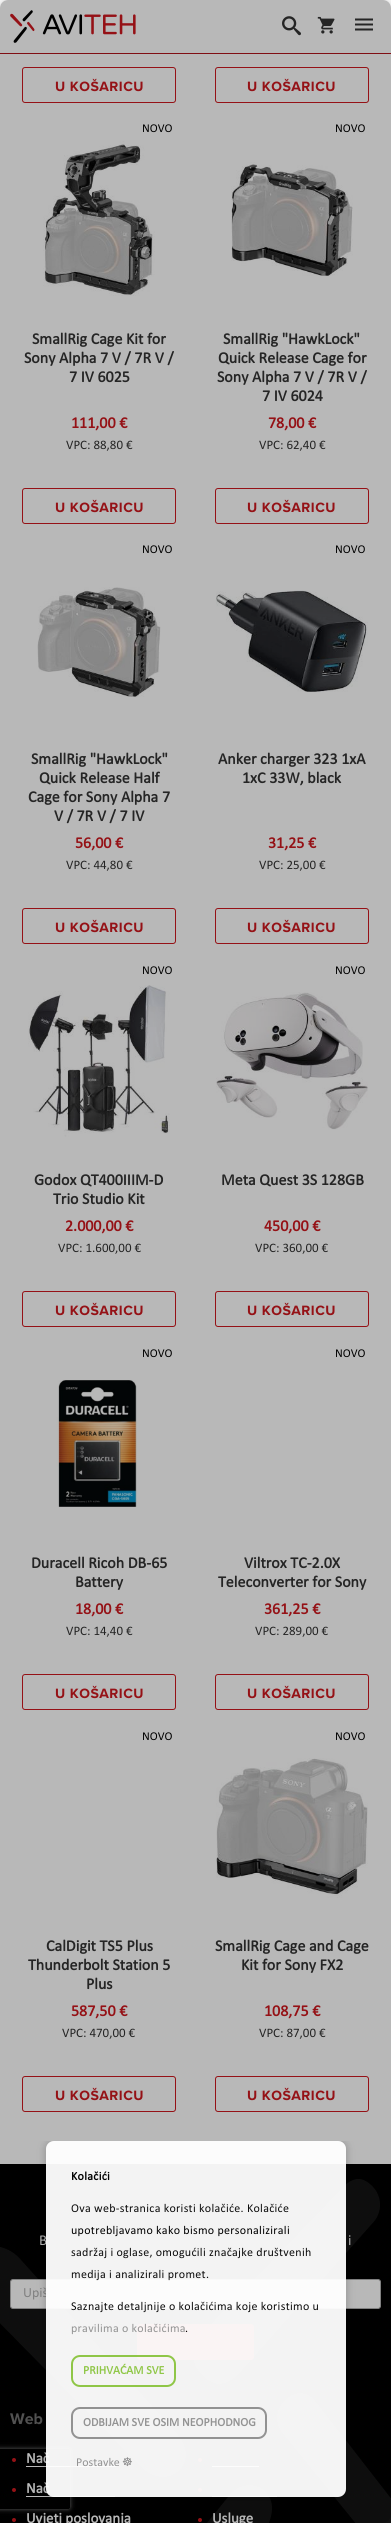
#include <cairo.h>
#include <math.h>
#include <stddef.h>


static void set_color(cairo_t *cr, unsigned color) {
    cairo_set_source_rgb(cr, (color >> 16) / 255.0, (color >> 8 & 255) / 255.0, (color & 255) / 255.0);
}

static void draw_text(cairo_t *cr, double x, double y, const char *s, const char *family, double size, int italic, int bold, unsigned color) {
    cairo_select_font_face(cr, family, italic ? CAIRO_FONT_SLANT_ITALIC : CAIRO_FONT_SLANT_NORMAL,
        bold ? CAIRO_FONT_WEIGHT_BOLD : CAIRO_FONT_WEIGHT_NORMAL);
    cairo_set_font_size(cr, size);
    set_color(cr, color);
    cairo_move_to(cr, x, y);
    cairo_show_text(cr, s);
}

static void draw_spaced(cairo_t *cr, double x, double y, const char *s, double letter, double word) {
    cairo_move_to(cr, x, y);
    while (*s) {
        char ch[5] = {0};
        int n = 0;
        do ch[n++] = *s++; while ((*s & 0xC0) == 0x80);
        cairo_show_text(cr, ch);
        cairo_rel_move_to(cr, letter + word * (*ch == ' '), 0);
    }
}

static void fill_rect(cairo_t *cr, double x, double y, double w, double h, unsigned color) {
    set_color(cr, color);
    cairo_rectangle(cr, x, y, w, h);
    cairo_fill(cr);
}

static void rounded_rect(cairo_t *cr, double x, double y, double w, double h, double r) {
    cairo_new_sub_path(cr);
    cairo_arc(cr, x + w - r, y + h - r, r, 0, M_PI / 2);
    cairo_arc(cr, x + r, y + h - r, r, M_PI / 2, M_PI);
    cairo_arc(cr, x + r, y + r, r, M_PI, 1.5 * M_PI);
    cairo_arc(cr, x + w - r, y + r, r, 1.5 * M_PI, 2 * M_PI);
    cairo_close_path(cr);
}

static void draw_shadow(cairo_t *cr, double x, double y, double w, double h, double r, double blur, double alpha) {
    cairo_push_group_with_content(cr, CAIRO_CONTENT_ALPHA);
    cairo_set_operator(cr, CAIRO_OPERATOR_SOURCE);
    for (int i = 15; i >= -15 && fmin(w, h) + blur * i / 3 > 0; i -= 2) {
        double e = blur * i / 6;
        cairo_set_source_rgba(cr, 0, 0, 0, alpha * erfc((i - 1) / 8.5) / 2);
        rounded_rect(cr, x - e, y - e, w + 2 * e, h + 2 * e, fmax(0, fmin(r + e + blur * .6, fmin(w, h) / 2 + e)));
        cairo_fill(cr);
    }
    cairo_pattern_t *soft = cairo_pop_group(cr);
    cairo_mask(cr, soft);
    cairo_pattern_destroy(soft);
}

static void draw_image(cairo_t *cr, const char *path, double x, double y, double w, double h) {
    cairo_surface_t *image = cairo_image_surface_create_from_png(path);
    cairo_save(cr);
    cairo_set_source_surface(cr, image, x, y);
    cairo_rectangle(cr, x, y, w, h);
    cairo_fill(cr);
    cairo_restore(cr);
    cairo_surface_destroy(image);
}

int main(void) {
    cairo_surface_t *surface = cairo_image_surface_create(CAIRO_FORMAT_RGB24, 391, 2523);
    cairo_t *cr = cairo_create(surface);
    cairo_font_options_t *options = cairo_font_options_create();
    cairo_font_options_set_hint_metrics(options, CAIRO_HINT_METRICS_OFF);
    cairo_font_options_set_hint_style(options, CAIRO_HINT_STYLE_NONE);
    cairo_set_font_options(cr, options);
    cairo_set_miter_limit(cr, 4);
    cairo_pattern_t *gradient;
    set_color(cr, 0xFFFFFF);
    cairo_paint(cr);
    fill_rect(cr, 0, 53, 391, 1, 0xB2141A);
    draw_image(cr, "assets/img1.png", 10, 10, 126, 33);
    draw_image(cr, "assets/img2.png", 282, 16, 19, 20);
    draw_image(cr, "assets/img3.png", 317, 16, 18, 18);
    draw_image(cr, "assets/img4.png", 355, 18, 18, 13);
    rounded_rect(cr, 22.5, 67.5, 153, 35, 2.5);
    set_color(cr, 0xCE181E);
    cairo_set_line_width(cr, 1);
    cairo_stroke(cr);
    cairo_select_font_face(cr, "Proxima Nova", CAIRO_FONT_SLANT_NORMAL, CAIRO_FONT_WEIGHT_BOLD);
    cairo_set_font_size(cr, 14);
    draw_spaced(cr, 55, 91, "U KOŠARICU", 0.5, 0);
    rounded_rect(cr, 215.5, 67.5, 153, 35, 2.5);
    cairo_stroke(cr);
    draw_spaced(cr, 247, 91, "U KOŠARICU", 0.5, 0);
    draw_text(cr, 142, 132, "NOVO", "Calibri", 12, 0, 0, 0x000000);
    draw_image(cr, "assets/img5.png", 43, 141, 112, 155);
    draw_text(cr, 32, 344, "SmallRig Cage Kit for", "Calibri", 16, 0, 1, 0x333333);
    draw_text(cr, 24, 363, "Sony Alpha 7 V / 7R V /", "Calibri", 16, 0, 1, 0x333333);
    draw_text(cr, 69, 382, "7 IV 6025", "Calibri", 16, 0, 1, 0x333333);
    draw_text(cr, 71, 428, "111,00 €", "Calibri", 16, 0, 1, 0xCE181E);
    draw_text(cr, 66, 449, "VPC: 88,80 €", "Calibri", 13, 0, 0, 0x333333);
    rounded_rect(cr, 22.5, 488.5, 153, 35, 2.5);
    set_color(cr, 0xCE181E);
    cairo_stroke(cr);
    cairo_select_font_face(cr, "Proxima Nova", CAIRO_FONT_SLANT_NORMAL, CAIRO_FONT_WEIGHT_BOLD);
    cairo_set_font_size(cr, 14);
    draw_spaced(cr, 55, 512, "U KOŠARICU", 0.5, 0);
    draw_text(cr, 335, 132, "NOVO", "Calibri", 12, 0, 0, 0x000000);
    draw_image(cr, "assets/img6.png", 231, 162, 122, 114);
    draw_text(cr, 223, 344, "SmallRig \"HawkLock\"", "Calibri", 16, 0, 1, 0x333333);
    draw_text(cr, 218, 363, "Quick Release Cage for", "Calibri", 16, 0, 1, 0x333333);
    draw_text(cr, 217, 382, "Sony Alpha 7 V / 7R V /", "Calibri", 16, 0, 1, 0x333333);
    draw_text(cr, 262, 401, "7 IV 6024", "Calibri", 16, 0, 1, 0x333333);
    draw_text(cr, 268, 428, "78,00 €", "Calibri", 16, 0, 1, 0xCE181E);
    draw_text(cr, 259, 449, "VPC: 62,40 €", "Calibri", 13, 0, 0, 0x333333);
    rounded_rect(cr, 215.5, 488.5, 153, 35, 2.5);
    set_color(cr, 0xCE181E);
    cairo_stroke(cr);
    cairo_select_font_face(cr, "Proxima Nova", CAIRO_FONT_SLANT_NORMAL, CAIRO_FONT_WEIGHT_BOLD);
    cairo_set_font_size(cr, 14);
    draw_spaced(cr, 247, 512, "U KOŠARICU", 0.5, 0);
    draw_text(cr, 142, 553, "NOVO", "Calibri", 12, 0, 0, 0x000000);
    draw_image(cr, "assets/img7.png", 37, 587, 124, 110);
    draw_text(cr, 31, 764, "SmallRig \"HawkLock\"", "Calibri", 16, 0, 1, 0x333333);
    draw_text(cr, 39, 783, "Quick Release Half", "Calibri", 16, 0, 1, 0x333333);
    draw_text(cr, 28, 802, "Cage for Sony Alpha 7", "Calibri", 16, 0, 1, 0x333333);
    draw_text(cr, 54, 821, "V / 7R V / 7 IV", "Calibri", 16, 0, 1, 0x333333);
    draw_text(cr, 75, 848, "56,00 €", "Calibri", 16, 0, 1, 0xCE181E);
    draw_text(cr, 66, 869, "VPC: 44,80 €", "Calibri", 13, 0, 0, 0x333333);
    rounded_rect(cr, 22.5, 908.5, 153, 35, 2.5);
    set_color(cr, 0xCE181E);
    cairo_stroke(cr);
    cairo_select_font_face(cr, "Proxima Nova", CAIRO_FONT_SLANT_NORMAL, CAIRO_FONT_WEIGHT_BOLD);
    cairo_set_font_size(cr, 14);
    draw_spaced(cr, 55, 932, "U KOŠARICU", 0.5, 0);
    draw_text(cr, 335, 553, "NOVO", "Calibri", 12, 0, 0, 0x000000);
    draw_image(cr, "assets/img8.png", 216, 590, 152, 102);
    draw_text(cr, 218, 764, "Anker charger 323 1xA", "Calibri", 16, 0, 1, 0x333333);
    draw_text(cr, 242, 783, "1xC 33W, black", "Calibri", 16, 0, 1, 0x333333);
    draw_text(cr, 268, 848, "31,25 €", "Calibri", 16, 0, 1, 0xCE181E);
    draw_text(cr, 259, 869, "VPC: 25,00 €", "Calibri", 13, 0, 0, 0x333333);
    rounded_rect(cr, 215.5, 908.5, 153, 35, 2.5);
    set_color(cr, 0xCE181E);
    cairo_stroke(cr);
    cairo_select_font_face(cr, "Proxima Nova", CAIRO_FONT_SLANT_NORMAL, CAIRO_FONT_WEIGHT_BOLD);
    cairo_set_font_size(cr, 14);
    draw_spaced(cr, 247, 932, "U KOŠARICU", 0.5, 0);
    draw_text(cr, 142, 974, "NOVO", "Calibri", 12, 0, 0, 0x000000);
    draw_image(cr, "assets/img9.png", 28, 985, 142, 152);
    draw_text(cr, 34, 1185, "Godox QT400IIIM-D", "Calibri", 16, 0, 1, 0x333333);
    draw_text(cr, 53, 1204, "Trio Studio Kit", "Calibri", 16, 0, 1, 0x333333);
    draw_text(cr, 65, 1231, "2.000,00 €", "Calibri", 16, 0, 1, 0xCE181E);
    draw_text(cr, 58, 1252, "VPC: 1.600,00 €", "Calibri", 13, 0, 0, 0x333333);
    rounded_rect(cr, 22.5, 1291.5, 153, 35, 2.5);
    set_color(cr, 0xCE181E);
    cairo_stroke(cr);
    cairo_select_font_face(cr, "Proxima Nova", CAIRO_FONT_SLANT_NORMAL, CAIRO_FONT_WEIGHT_BOLD);
    cairo_set_font_size(cr, 14);
    draw_spaced(cr, 55, 1315, "U KOŠARICU", 0.5, 0);
    draw_text(cr, 335, 974, "NOVO", "Calibri", 12, 0, 0, 0x000000);
    draw_image(cr, "assets/img10.png", 216, 992, 152, 138);
    draw_text(cr, 221, 1185, "Meta Quest 3S 128GB", "Calibri", 16, 0, 1, 0x333333);
    draw_text(cr, 264, 1231, "450,00 €", "Calibri", 16, 0, 1, 0xCE181E);
    draw_text(cr, 255, 1252, "VPC: 360,00 €", "Calibri", 13, 0, 0, 0x333333);
    rounded_rect(cr, 215.5, 1291.5, 153, 35, 2.5);
    set_color(cr, 0xCE181E);
    cairo_stroke(cr);
    cairo_select_font_face(cr, "Proxima Nova", CAIRO_FONT_SLANT_NORMAL, CAIRO_FONT_WEIGHT_BOLD);
    cairo_set_font_size(cr, 14);
    draw_spaced(cr, 247, 1315, "U KOŠARICU", 0.5, 0);
    draw_text(cr, 142, 1357, "NOVO", "Calibri", 12, 0, 0, 0x000000);
    draw_image(cr, "assets/img11.png", 56, 1380, 81, 127);
    draw_text(cr, 31, 1568, "Duracell Ricoh DB-65", "Calibri", 16, 0, 1, 0x333333);
    draw_text(cr, 75, 1587, "Battery", "Calibri", 16, 0, 1, 0x333333);
    draw_text(cr, 75, 1614, "18,00 €", "Calibri", 16, 0, 1, 0xCE181E);
    draw_text(cr, 66, 1635, "VPC: 14,40 €", "Calibri", 13, 0, 0, 0x333333);
    rounded_rect(cr, 22.5, 1674.5, 153, 35, 2.5);
    set_color(cr, 0xCE181E);
    cairo_stroke(cr);
    cairo_select_font_face(cr, "Proxima Nova", CAIRO_FONT_SLANT_NORMAL, CAIRO_FONT_WEIGHT_BOLD);
    cairo_set_font_size(cr, 14);
    draw_spaced(cr, 55, 1698, "U KOŠARICU", 0.5, 0);
    draw_text(cr, 335, 1357, "NOVO", "Calibri", 12, 0, 0, 0x000000);
    draw_text(cr, 244, 1568, "Viltrox TC-2.0X", "Calibri", 16, 0, 1, 0x333333);
    draw_text(cr, 218, 1587, "Teleconverter for Sony", "Calibri", 16, 0, 1, 0x333333);
    draw_text(cr, 264, 1614, "361,25 €", "Calibri", 16, 0, 1, 0xCE181E);
    draw_text(cr, 255, 1635, "VPC: 289,00 €", "Calibri", 13, 0, 0, 0x333333);
    rounded_rect(cr, 215.5, 1674.5, 153, 35, 2.5);
    set_color(cr, 0xCE181E);
    cairo_stroke(cr);
    cairo_select_font_face(cr, "Proxima Nova", CAIRO_FONT_SLANT_NORMAL, CAIRO_FONT_WEIGHT_BOLD);
    cairo_set_font_size(cr, 14);
    draw_spaced(cr, 247, 1698, "U KOŠARICU", 0.5, 0);
    draw_text(cr, 142, 1740, "NOVO", "Calibri", 12, 0, 0, 0x000000);
    draw_text(cr, 46, 1951, "CalDigit TS5 Plus", "Calibri", 16, 0, 1, 0x333333);
    draw_text(cr, 28, 1970, "Thunderbolt Station 5", "Calibri", 16, 0, 1, 0x333333);
    draw_text(cr, 86, 1989, "Plus", "Calibri", 16, 0, 1, 0x333333);
    draw_text(cr, 71, 2016, "587,50 €", "Calibri", 16, 0, 1, 0xCE181E);
    draw_text(cr, 62, 2037, "VPC: 470,00 €", "Calibri", 13, 0, 0, 0x333333);
    rounded_rect(cr, 22.5, 2076.5, 153, 35, 2.5);
    set_color(cr, 0xCE181E);
    cairo_stroke(cr);
    cairo_select_font_face(cr, "Proxima Nova", CAIRO_FONT_SLANT_NORMAL, CAIRO_FONT_WEIGHT_BOLD);
    cairo_set_font_size(cr, 14);
    draw_spaced(cr, 55, 2100, "U KOŠARICU", 0.5, 0);
    draw_text(cr, 335, 1740, "NOVO", "Calibri", 12, 0, 0, 0x000000);
    draw_image(cr, "assets/img12.png", 216, 1758, 152, 140);
    draw_text(cr, 215, 1951, "SmallRig Cage and Cage", "Calibri", 16, 0, 1, 0x333333);
    draw_text(cr, 241, 1970, "Kit for Sony FX2", "Calibri", 16, 0, 1, 0x333333);
    draw_text(cr, 264, 2016, "108,75 €", "Calibri", 16, 0, 1, 0xCE181E);
    draw_text(cr, 259, 2037, "VPC: 87,00 €", "Calibri", 13, 0, 0, 0x333333);
    rounded_rect(cr, 215.5, 2076.5, 153, 35, 2.5);
    set_color(cr, 0xCE181E);
    cairo_stroke(cr);
    cairo_select_font_face(cr, "Proxima Nova", CAIRO_FONT_SLANT_NORMAL, CAIRO_FONT_WEIGHT_BOLD);
    cairo_set_font_size(cr, 14);
    draw_spaced(cr, 247, 2100, "U KOŠARICU", 0.5, 0);
    fill_rect(cr, 0, 2164, 391, 359, 0x000000);
    draw_image(cr, "assets/img13.png", 0, 2179, 391, 344);
    draw_text(cr, 39, 2245, "B", "Calibri", 15, 0, 0, 0xFFFFFF);
    draw_text(cr, 348, 2245, "i", "Calibri", 15, 0, 0, 0xFFFFFF);
    rounded_rect(cr, 10.5, 2279.5, 370, 29, 2.5);
    cairo_fill_preserve(cr);
    set_color(cr, 0xB2B2B2);
    cairo_stroke(cr);
    draw_text(cr, 23, 2297, "Upiš", "Calibri", 14, 0, 0, 0xB2B2B2);
    set_color(cr, 0xCE181E);
    rounded_rect(cr, 137.5, 2324.5, 116, 35, 2.5);
    cairo_fill_preserve(cr);
    cairo_stroke(cr);
    draw_text(cr, 10, 2424, "Web", "Proxima Nova", 16, 0, 1, 0x707070);
    set_color(cr, 0xCE181E);
    cairo_new_path(cr);
    cairo_arc(cr, 14, 2460, 2, 0, 2 * M_PI);
    cairo_fill(cr);
    gradient = cairo_pattern_create_linear(72, 2469, 72, 2451);
    cairo_pattern_add_color_stop_rgba(gradient, 0, 0, 0, 0, 1);
    cairo_pattern_add_color_stop_rgba(gradient, 0.11, 0, 0, 0, 1);
    cairo_pattern_add_color_stop_rgba(gradient, 0.11, 1, 1, 1, 1);
    cairo_pattern_add_color_stop_rgba(gradient, 0.17, 1, 1, 1, 1);
    cairo_pattern_add_color_stop_rgba(gradient, 0.17, 0, 0, 0, 1);
    cairo_set_source(cr, gradient);
    cairo_pattern_destroy(gradient);
    cairo_rectangle(cr, 26, 2466, 92, 1);
    cairo_fill(cr);
    draw_text(cr, 26, 2463, "Nač", "Calibri", 15, 0, 1, 0xFFFFFF);
    set_color(cr, 0xCE181E);
    cairo_new_path(cr);
    cairo_arc(cr, 14, 2490, 2, 0, 2 * M_PI);
    cairo_fill(cr);
    gradient = cairo_pattern_create_linear(71, 2499, 71, 2481);
    cairo_pattern_add_color_stop_rgba(gradient, 0, 0, 0, 0, 1);
    cairo_pattern_add_color_stop_rgba(gradient, 0.11, 0, 0, 0, 1);
    cairo_pattern_add_color_stop_rgba(gradient, 0.11, 1, 1, 1, 1);
    cairo_pattern_add_color_stop_rgba(gradient, 0.17, 1, 1, 1, 1);
    cairo_pattern_add_color_stop_rgba(gradient, 0.17, 0, 0, 0, 1);
    cairo_set_source(cr, gradient);
    cairo_pattern_destroy(gradient);
    cairo_rectangle(cr, 26, 2496, 89, 1);
    cairo_fill(cr);
    draw_text(cr, 26, 2493, "Nač", "Calibri", 15, 0, 1, 0xFFFFFF);
    set_color(cr, 0xCE181E);
    cairo_new_path(cr);
    cairo_arc(cr, 14, 2520, 2, 0, 2 * M_PI);
    cairo_fill(cr);
    draw_text(cr, 26, 2523, "Uvjeti poslovanja", "Calibri", 15, 0, 1, 0xFFFFFF);
    set_color(cr, 0xCE181E);
    cairo_new_path(cr);
    cairo_arc(cr, 200, 2460, 2, 0, 2 * M_PI);
    cairo_fill(cr);
    gradient = cairo_pattern_create_linear(236, 2469, 236, 2451);
    cairo_pattern_add_color_stop_rgba(gradient, 0, 0, 0, 0, 1);
    cairo_pattern_add_color_stop_rgba(gradient, 0.11, 0, 0, 0, 1);
    cairo_pattern_add_color_stop_rgba(gradient, 0.11, 1, 1, 1, 1);
    cairo_pattern_add_color_stop_rgba(gradient, 0.17, 1, 1, 1, 1);
    cairo_pattern_add_color_stop_rgba(gradient, 0.17, 0, 0, 0, 1);
    cairo_set_source(cr, gradient);
    cairo_pattern_destroy(gradient);
    cairo_rectangle(cr, 212, 2466, 47, 1);
    cairo_fill(cr);
    set_color(cr, 0xCE181E);
    cairo_arc(cr, 200, 2490, 2, 0, 2 * M_PI);
    cairo_fill(cr);
    gradient = cairo_pattern_create_linear(245, 2499, 245, 2481);
    cairo_pattern_add_color_stop_rgba(gradient, 0, 0, 0, 0, 0);
    cairo_pattern_add_color_stop_rgba(gradient, 0.11, 1, 1, 1, 0);
    cairo_pattern_add_color_stop_rgba(gradient, 0.11, 1, 1, 1, 1);
    cairo_pattern_add_color_stop_rgba(gradient, 0.17, 1, 1, 1, 1);
    cairo_pattern_add_color_stop_rgba(gradient, 0.17, 1, 1, 1, 0);
    cairo_set_source(cr, gradient);
    cairo_pattern_destroy(gradient);
    cairo_rectangle(cr, 212, 2496, 65, 1);
    cairo_fill(cr);
    set_color(cr, 0xCE181E);
    cairo_arc(cr, 200, 2520, 2, 0, 2 * M_PI);
    cairo_fill(cr);
    draw_text(cr, 212, 2523, "Usluge", "Calibri", 15, 0, 1, 0xFFFFFF);
    cairo_save(cr);
    cairo_set_fill_rule(cr, CAIRO_FILL_RULE_EVEN_ODD);
    cairo_new_path(cr);
    cairo_move_to(cr, 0, 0);
    cairo_line_to(cr, 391, 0);
    cairo_line_to(cr, 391, 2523);
    cairo_line_to(cr, 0, 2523);
    cairo_close_path(cr);
    cairo_move_to(cr, 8, 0);
    cairo_line_to(cr, 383, 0);
    cairo_curve_to(cr, 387.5, 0, 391, 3.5, 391, 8);
    cairo_line_to(cr, 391, 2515);
    cairo_curve_to(cr, 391, 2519.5, 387.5, 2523, 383, 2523);
    cairo_line_to(cr, 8, 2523);
    cairo_curve_to(cr, 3.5, 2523, 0, 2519.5, 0, 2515);
    cairo_line_to(cr, 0, 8);
    cairo_curve_to(cr, 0, 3.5, 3.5, 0, 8, 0);
    cairo_close_path(cr);
    cairo_clip(cr);
    set_color(cr, 0x000000);
    draw_shadow(cr, -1, -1, 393, 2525, 9, 4, 0.19);
    cairo_restore(cr);
    cairo_save(cr);
    cairo_set_fill_rule(cr, CAIRO_FILL_RULE_EVEN_ODD);
    cairo_new_path(cr);
    cairo_move_to(cr, 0, 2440);
    cairo_line_to(cr, 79, 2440);
    cairo_line_to(cr, 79, 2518);
    cairo_line_to(cr, 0, 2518);
    cairo_close_path(cr);
    cairo_move_to(cr, -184, 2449);
    cairo_line_to(cr, 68, 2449);
    cairo_curve_to(cr, 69, 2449, 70, 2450, 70, 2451);
    cairo_line_to(cr, 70, 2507);
    cairo_curve_to(cr, 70, 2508, 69, 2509, 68, 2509);
    cairo_line_to(cr, -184, 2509);
    cairo_curve_to(cr, -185, 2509, -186, 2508, -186, 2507);
    cairo_line_to(cr, -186, 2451);
    cairo_curve_to(cr, -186, 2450, -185, 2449, -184, 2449);
    cairo_close_path(cr);
    cairo_clip(cr);
    set_color(cr, 0x808080);
    draw_shadow(cr, -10, 2449, 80, 60, 2, 2.5, 1);
    cairo_restore(cr);
    cairo_set_source_rgba(cr, 0, 0, 0, 0.28);
    rounded_rect(cr, 0, 0, 391, 2523, 8);
    cairo_fill(cr);
    cairo_save(cr);
    cairo_rectangle(cr, 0, 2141, 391, 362);
    cairo_clip(cr);
    cairo_set_fill_rule(cr, CAIRO_FILL_RULE_EVEN_ODD);
    cairo_new_path(cr);
    cairo_move_to(cr, 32, 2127);
    cairo_line_to(cr, 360, 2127);
    cairo_line_to(cr, 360, 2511);
    cairo_line_to(cr, 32, 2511);
    cairo_close_path(cr);
    cairo_move_to(cr, 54, 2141);
    cairo_line_to(cr, 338, 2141);
    cairo_curve_to(cr, 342.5, 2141, 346, 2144.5, 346, 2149);
    cairo_line_to(cr, 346, 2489);
    cairo_curve_to(cr, 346, 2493.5, 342.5, 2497, 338, 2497);
    cairo_line_to(cr, 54, 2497);
    cairo_curve_to(cr, 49.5, 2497, 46, 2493.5, 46, 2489);
    cairo_line_to(cr, 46, 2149);
    cairo_curve_to(cr, 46, 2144.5, 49.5, 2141, 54, 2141);
    cairo_close_path(cr);
    cairo_clip(cr);
    set_color(cr, 0x000000);
    draw_shadow(cr, 45, 2140, 302, 358, 9, 4, 0.19);
    cairo_restore(cr);
    cairo_set_source_rgba(cr, 1, 1, 1, 0.95);
    rounded_rect(cr, 46, 2141, 300, 356, 8);
    cairo_fill(cr);
    cairo_set_font_size(cr, 12);
    set_color(cr, 0x000000);
    draw_spaced(cr, 71, 2180, "Kolačići", 0.3, 0);
    cairo_select_font_face(cr, "Calibri", CAIRO_FONT_SLANT_NORMAL, CAIRO_FONT_WEIGHT_NORMAL);
    set_color(cr, 0x0C0C0C);
    draw_spaced(cr, 71, 2212, "Ova web-stranica koristi kolačiće. Kolačiće", 0.3, 0);
    set_color(cr, 0x000000);
    draw_spaced(cr, 71, 2234, "upotrebljavamo kako bismo personalizirali", 0.3, 0);
    set_color(cr, 0x0C0C0C);
    draw_spaced(cr, 71, 2256, "sadržaj i oglase, omogućili značajke društvenih", 0.3, 0);
    draw_spaced(cr, 71, 2278, "medija i analizirali promet.", 0.3, 0);
    draw_spaced(cr, 71, 2310, "Saznajte detaljnije o kolačićima koje koristimo u", 0.3, 0);
    set_color(cr, 0x939393);
    draw_spaced(cr, 71, 2332, "pravilima o kolačićima", 0.3, 0);
    set_color(cr, 0x0A0102);
    draw_spaced(cr, 185, 2332, ".", 0.3, 0);
    rounded_rect(cr, 72, 2356, 103, 30, 8);
    cairo_set_source_rgba(cr, 0.545, 0.773, 0.247, 0.95);
    cairo_set_line_width(cr, 2);
    cairo_stroke(cr);
    draw_text(cr, 83, 2374, "PRIHVAĆAM SVE", "Calibri", 12, 0, 1, 0x90C748);
    rounded_rect(cr, 72, 2408, 194, 30, 8);
    cairo_set_source_rgba(cr, 0.557, 0.557, 0.557, 0.95);
    cairo_stroke(cr);
    draw_text(cr, 83, 2426, "ODBIJAM SVE OSIM NEOPHODNOG", "Calibri", 12, 0, 1, 0x939393);
    draw_text(cr, 76, 2466, "Postavke", "Calibri", 12, 0, 0, 0x939393);
    draw_text(cr, 122, 2466, "☸", "DejaVu Sans", 12, 0, 0, 0x878787);
    cairo_surface_write_to_png(surface, "output.png");
    cairo_font_options_destroy(options);
    cairo_destroy(cr);
    cairo_surface_destroy(surface);
    return 0;
}
